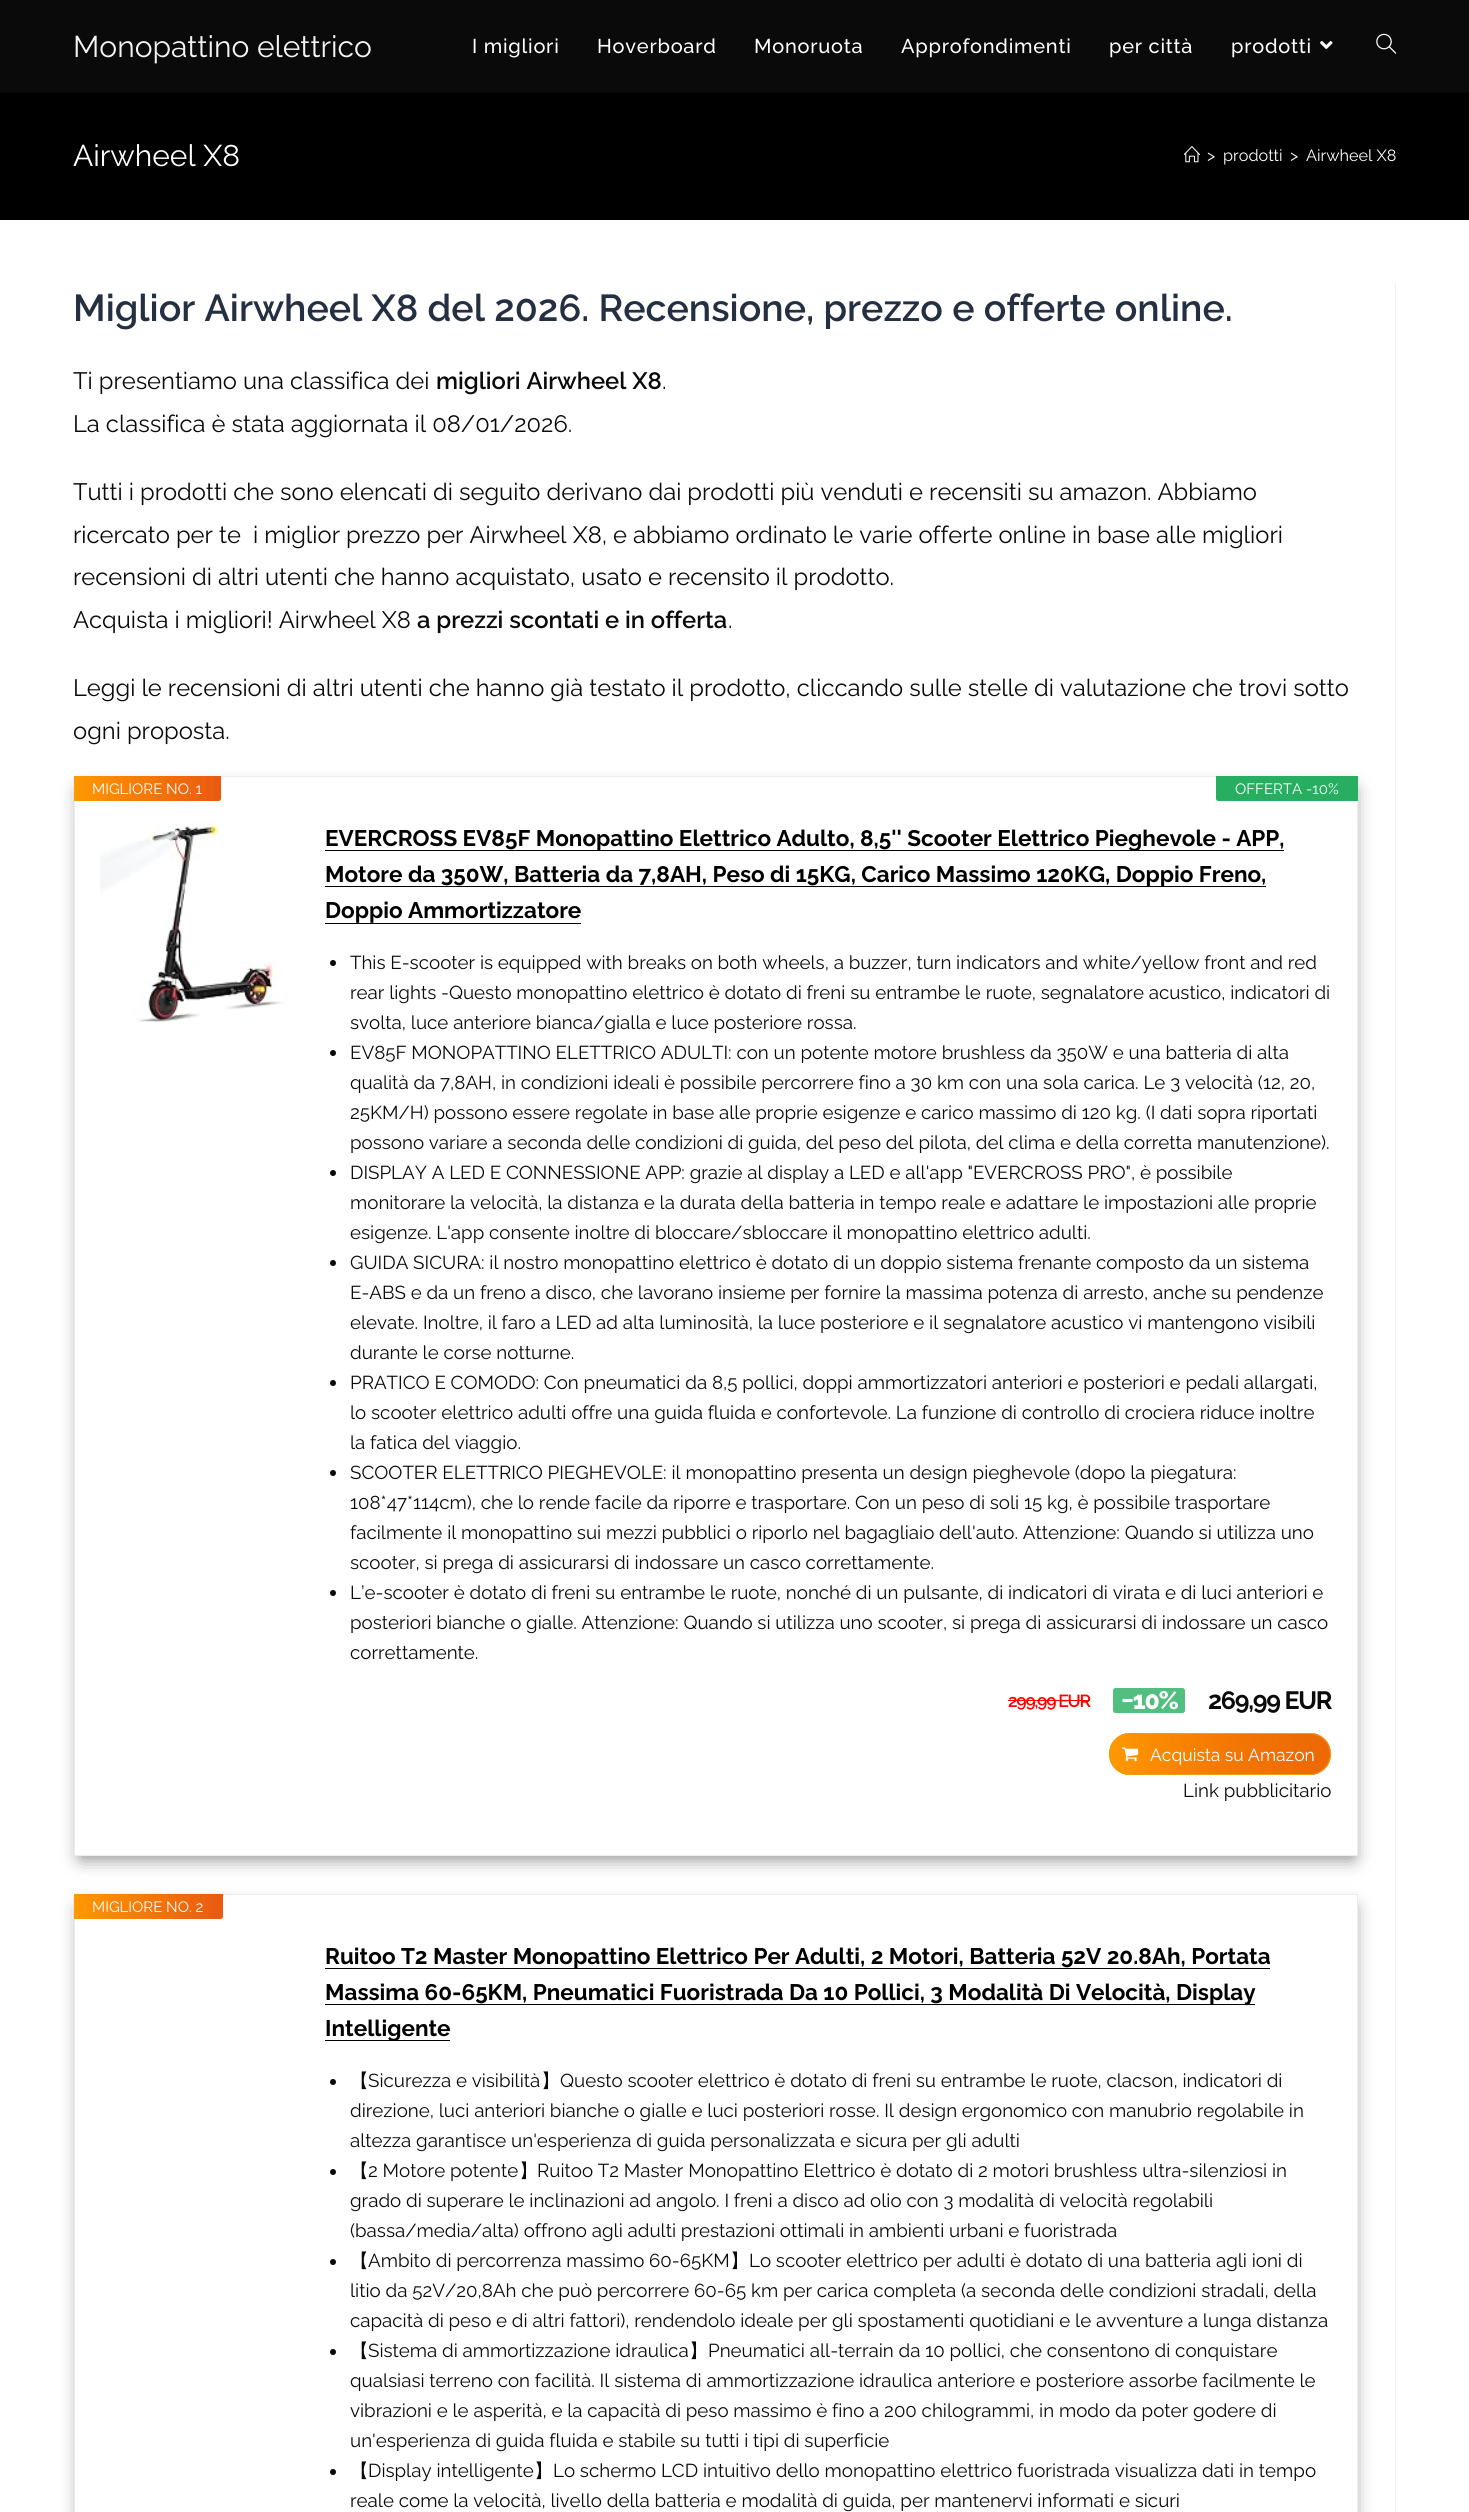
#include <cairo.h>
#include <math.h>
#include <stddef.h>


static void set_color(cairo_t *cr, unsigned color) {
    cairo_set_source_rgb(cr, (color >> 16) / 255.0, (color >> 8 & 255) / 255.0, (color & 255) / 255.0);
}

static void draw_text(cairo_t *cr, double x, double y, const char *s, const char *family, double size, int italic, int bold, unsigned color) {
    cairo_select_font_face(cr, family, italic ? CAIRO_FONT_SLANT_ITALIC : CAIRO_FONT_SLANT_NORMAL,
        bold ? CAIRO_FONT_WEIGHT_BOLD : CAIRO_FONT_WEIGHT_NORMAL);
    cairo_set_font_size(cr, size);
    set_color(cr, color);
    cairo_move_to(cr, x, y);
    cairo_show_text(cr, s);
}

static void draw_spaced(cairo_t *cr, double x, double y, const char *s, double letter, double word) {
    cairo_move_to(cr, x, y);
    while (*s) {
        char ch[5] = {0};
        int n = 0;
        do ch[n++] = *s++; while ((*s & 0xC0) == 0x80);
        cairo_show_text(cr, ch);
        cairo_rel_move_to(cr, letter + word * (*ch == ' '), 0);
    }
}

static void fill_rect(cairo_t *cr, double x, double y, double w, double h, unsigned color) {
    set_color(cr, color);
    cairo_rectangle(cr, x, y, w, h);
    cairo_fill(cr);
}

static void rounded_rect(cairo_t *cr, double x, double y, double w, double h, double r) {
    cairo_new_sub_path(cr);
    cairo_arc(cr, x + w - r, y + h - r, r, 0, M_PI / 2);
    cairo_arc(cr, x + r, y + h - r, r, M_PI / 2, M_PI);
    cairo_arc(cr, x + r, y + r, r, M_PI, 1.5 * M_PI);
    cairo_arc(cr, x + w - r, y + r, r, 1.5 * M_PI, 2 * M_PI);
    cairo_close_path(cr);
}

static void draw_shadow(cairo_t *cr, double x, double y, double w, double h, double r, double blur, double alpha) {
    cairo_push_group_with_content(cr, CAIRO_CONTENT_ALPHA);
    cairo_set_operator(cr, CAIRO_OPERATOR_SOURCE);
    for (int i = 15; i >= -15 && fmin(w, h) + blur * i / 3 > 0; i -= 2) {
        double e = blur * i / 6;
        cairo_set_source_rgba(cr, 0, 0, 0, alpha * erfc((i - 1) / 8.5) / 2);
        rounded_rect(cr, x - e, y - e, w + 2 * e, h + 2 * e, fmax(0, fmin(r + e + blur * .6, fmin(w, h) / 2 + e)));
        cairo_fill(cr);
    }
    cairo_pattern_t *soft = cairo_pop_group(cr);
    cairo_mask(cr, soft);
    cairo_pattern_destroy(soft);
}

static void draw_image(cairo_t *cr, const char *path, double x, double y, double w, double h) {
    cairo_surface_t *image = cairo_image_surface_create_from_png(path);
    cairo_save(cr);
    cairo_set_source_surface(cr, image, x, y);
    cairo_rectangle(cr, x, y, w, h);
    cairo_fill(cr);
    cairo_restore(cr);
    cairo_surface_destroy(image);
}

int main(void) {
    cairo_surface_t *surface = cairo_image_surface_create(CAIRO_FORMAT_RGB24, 1469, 2512);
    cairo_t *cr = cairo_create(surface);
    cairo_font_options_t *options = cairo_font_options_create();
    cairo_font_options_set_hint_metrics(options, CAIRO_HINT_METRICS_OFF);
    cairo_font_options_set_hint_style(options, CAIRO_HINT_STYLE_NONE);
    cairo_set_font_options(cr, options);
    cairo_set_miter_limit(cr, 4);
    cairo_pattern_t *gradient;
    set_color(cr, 0xFFFFFF);
    cairo_paint(cr);
    fill_rect(cr, 0, 0, 1469, 93, 0x0A0A0A);
    draw_text(cr, 73, 57, "Monopattino elettrico", "Raleway Thin", 30, 0, 0, 0xF4F4F4);
    cairo_select_font_face(cr, "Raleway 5 Thin", CAIRO_FONT_SLANT_NORMAL, CAIRO_FONT_WEIGHT_NORMAL);
    cairo_set_font_size(cr, 20);
    set_color(cr, 0xFFFFFF);
    draw_spaced(cr, 472, 53, "I migliori", 0.75, 0);
    draw_spaced(cr, 597, 53, "Hoverboard", 0.75, 0);
    draw_spaced(cr, 754, 53, "Monoruota", 0.75, 0);
    draw_spaced(cr, 901, 53, "Approfondimenti", 0.75, 0);
    draw_spaced(cr, 1109, 53, "per città", 0.75, 0);
    draw_spaced(cr, 1231, 53, "prodotti", 0.75, 0);
    draw_image(cr, "assets/img1.png", 1320, 41, 13, 8);
    draw_image(cr, "assets/img2.png", 1376, 33, 21, 21);
    fill_rect(cr, 0, 93, 1469, 127, 0x000000);
    draw_text(cr, 73, 166, "Airwheel X8", "Raleway Thin", 30, 0, 0, 0xFFFFFF);
    draw_image(cr, "assets/img3.png", 1184, 146, 16, 17);
    draw_text(cr, 1207, 161, ">", "Raleway Thin", 16.25, 0, 0, 0xFFFFFF);
    draw_text(cr, 1223, 161, "prodotti", "Raleway Thin", 16.25, 0, 0, 0xFFFFFF);
    draw_text(cr, 1290, 161, ">", "Raleway Thin", 16.25, 0, 0, 0xFFFFFF);
    draw_text(cr, 1306, 161, "Airwheel X8", "Raleway Thin", 16.25, 0, 0, 0xFFFFFF);
    fill_rect(cr, 1395, 283, 1, 2229, 0xF1F1F1);
    draw_text(cr, 73, 321, "Miglior Airwheel X8 del 2026. Recensione, prezzo e offerte online.", "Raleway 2 Thin", 37.5, 0, 0, 0x242F41);
    draw_text(cr, 73, 389, "Ti presentiamo una classifica dei", "Raleway Thin", 23.75, 0, 0, 0x0A0A0A);
    draw_text(cr, 436, 389, "migliori Airwheel X8", "Raleway 2 Thin", 23.75, 0, 0, 0x0A0A0A);
    draw_text(cr, 662, 389, ".", "Raleway Thin", 23.75, 0, 0, 0x0A0A0A);
    draw_text(cr, 73, 432, "La classifica è stata aggiornata il 08/01/2026.", "Raleway Thin", 23.75, 0, 0, 0x0A0A0A);
    draw_text(cr, 73, 500, "Tutti i prodotti che sono elencati di seguito derivano dai prodotti più venduti e recensiti su amazon. Abbiamo", "Raleway Thin", 23.75, 0, 0, 0x0A0A0A);
    draw_text(cr, 73, 543, "ricercato per te  i miglior prezzo per Airwheel X8, e abbiamo ordinato le varie offerte online in base alle migliori", "Raleway Thin", 23.75, 0, 0, 0x0A0A0A);
    draw_text(cr, 73, 585, "recensioni di altri utenti che hanno acquistato, usato e recensito il prodotto.", "Raleway Thin", 23.75, 0, 0, 0x0A0A0A);
    draw_text(cr, 73, 628, "Acquista i migliori! Airwheel X8", "Raleway Thin", 23.75, 0, 0, 0x0A0A0A);
    draw_text(cr, 417, 628, "a prezzi scontati e in offerta", "Raleway 2 Thin", 23.75, 0, 0, 0x0A0A0A);
    draw_text(cr, 728, 628, ".", "Raleway Thin", 23.75, 0, 0, 0x0A0A0A);
    draw_text(cr, 73, 696, "Leggi le recensioni di altri utenti che hanno già testato il prodotto, cliccando sulle stelle di valutazione che trovi sotto", "Raleway Thin", 23.75, 0, 0, 0x0A0A0A);
    draw_text(cr, 73, 739, "ogni proposta.", "Raleway Thin", 23.75, 0, 0, 0x0A0A0A);
    set_color(cr, 0x000000);
    draw_shadow(cr, 81, 790, 1272, 1068, 0, 9.5, 0.5);
    set_color(cr, 0xFFFFFF);
    cairo_rectangle(cr, 74.5, 776.5, 1283, 1079);
    cairo_fill_preserve(cr);
    set_color(cr, 0xECECEC);
    cairo_set_line_width(cr, 1);
    cairo_stroke(cr);
    gradient = cairo_pattern_create_linear(74, 789, 221, 789);
    cairo_pattern_add_color_stop_rgba(gradient, 0, 1, 0.6, 0, 1);
    cairo_pattern_add_color_stop_rgba(gradient, 1, 0.91, 0.302, 0, 0.93);
    cairo_set_source(cr, gradient);
    cairo_pattern_destroy(gradient);
    cairo_new_path(cr);
    cairo_move_to(cr, 74, 776);
    cairo_line_to(cr, 221, 776);
    cairo_line_to(cr, 221, 798.5);
    cairo_curve_to(cr, 221, 800, 220, 801, 218.5, 801);
    cairo_line_to(cr, 74, 801);
    cairo_close_path(cr);
    cairo_fill(cr);
    draw_text(cr, 92, 794, "MIGLIORE NO. 1", "Raleway Thin", 15, 0, 0, 0xFFFFFF);
    set_color(cr, 0x27AE60);
    cairo_new_path(cr);
    cairo_move_to(cr, 1216, 776);
    cairo_line_to(cr, 1358, 776);
    cairo_line_to(cr, 1358, 801);
    cairo_line_to(cr, 1218.5, 801);
    cairo_curve_to(cr, 1217, 801, 1216, 800, 1216, 798.5);
    cairo_close_path(cr);
    cairo_fill(cr);
    draw_text(cr, 1235, 794, "OFFERTA -10%", "Raleway Thin", 15, 0, 0, 0xFFFFFF);
    draw_image(cr, "assets/img4.png", 100, 821, 185, 201);
    fill_rect(cr, 325, 850, 959, 1, 0x000000);
    draw_text(cr, 325, 846, "EVERCROSS EV85F Monopattino Elettrico Adulto, 8,5'' Scooter Elettrico Pieghevole - APP,", "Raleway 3 Thin", 22.5, 0, 0, 0x000000);
    fill_rect(cr, 325, 886, 941, 1, 0x000000);
    draw_text(cr, 325, 882, "Motore da 350W, Batteria da 7,8AH, Peso di 15KG, Carico Massimo 120KG, Doppio Freno,", "Raleway 3 Thin", 22.5, 0, 0, 0x000000);
    draw_text(cr, 325, 918, "Doppio Ammortizzatore", "Raleway 3 Thin", 22.5, 0, 0, 0x000000);
    fill_rect(cr, 325, 923, 256, 1, 0x000000);
    set_color(cr, 0x0A0A0A);
    cairo_new_path(cr);
    cairo_arc(cr, 333, 963, 3, 0, 2 * M_PI);
    cairo_fill(cr);
    draw_text(cr, 350, 969, "This E-scooter is equipped with breaks on both wheels, a buzzer, turn indicators and white/yellow front and red", "Raleway Thin", 18.75, 0, 0, 0x0A0A0A);
    draw_text(cr, 350, 999, "rear lights -Questo monopattino elettrico è dotato di freni su entrambe le ruote, segnalatore acustico, indicatori di", "Raleway Thin", 18.75, 0, 0, 0x0A0A0A);
    draw_text(cr, 350, 1029, "svolta, luce anteriore bianca/gialla e luce posteriore rossa.", "Raleway Thin", 18.75, 0, 0, 0x0A0A0A);
    cairo_new_path(cr);
    cairo_arc(cr, 333, 1053, 3, 0, 2 * M_PI);
    cairo_fill(cr);
    draw_text(cr, 350, 1059, "EV85F MONOPATTINO ELETTRICO ADULTI: con un potente motore brushless da 350W e una batteria di alta", "Raleway Thin", 18.75, 0, 0, 0x0A0A0A);
    draw_text(cr, 350, 1089, "qualità da 7,8AH, in condizioni ideali è possibile percorrere fino a 30 km con una sola carica. Le 3 velocità (12, 20,", "Raleway Thin", 18.75, 0, 0, 0x0A0A0A);
    draw_text(cr, 350, 1119, "25KM/H) possono essere regolate in base alle proprie esigenze e carico massimo di 120 kg. (I dati sopra riportati", "Raleway Thin", 18.75, 0, 0, 0x0A0A0A);
    draw_text(cr, 350, 1149, "possono variare a seconda delle condizioni di guida, del peso del pilota, del clima e della corretta manutenzione).", "Raleway Thin", 18.75, 0, 0, 0x0A0A0A);
    cairo_new_path(cr);
    cairo_arc(cr, 333, 1173, 3, 0, 2 * M_PI);
    cairo_fill(cr);
    draw_text(cr, 350, 1179, "DISPLAY A LED E CONNESSIONE APP: grazie al display a LED e all'app \"EVERCROSS PRO\", è possibile", "Raleway Thin", 18.75, 0, 0, 0x0A0A0A);
    draw_text(cr, 350, 1209, "monitorare la velocità, la distanza e la durata della batteria in tempo reale e adattare le impostazioni alle proprie", "Raleway Thin", 18.75, 0, 0, 0x0A0A0A);
    draw_text(cr, 350, 1239, "esigenze. L'app consente inoltre di bloccare/sbloccare il monopattino elettrico adulti.", "Raleway Thin", 18.75, 0, 0, 0x0A0A0A);
    cairo_new_path(cr);
    cairo_arc(cr, 333, 1263, 3, 0, 2 * M_PI);
    cairo_fill(cr);
    draw_text(cr, 350, 1269, "GUIDA SICURA: il nostro monopattino elettrico è dotato di un doppio sistema frenante composto da un sistema", "Raleway Thin", 18.75, 0, 0, 0x0A0A0A);
    draw_text(cr, 350, 1299, "E-ABS e da un freno a disco, che lavorano insieme per fornire la massima potenza di arresto, anche su pendenze", "Raleway Thin", 18.75, 0, 0, 0x0A0A0A);
    draw_text(cr, 350, 1329, "elevate. Inoltre, il faro a LED ad alta luminosità, la luce posteriore e il segnalatore acustico vi mantengono visibili", "Raleway Thin", 18.75, 0, 0, 0x0A0A0A);
    draw_text(cr, 350, 1359, "durante le corse notturne.", "Raleway Thin", 18.75, 0, 0, 0x0A0A0A);
    cairo_new_path(cr);
    cairo_arc(cr, 333, 1383, 3, 0, 2 * M_PI);
    cairo_fill(cr);
    draw_text(cr, 350, 1389, "PRATICO E COMODO: Con pneumatici da 8,5 pollici, doppi ammortizzatori anteriori e posteriori e pedali allargati,", "Raleway Thin", 18.75, 0, 0, 0x0A0A0A);
    draw_text(cr, 350, 1419, "lo scooter elettrico adulti offre una guida fluida e confortevole. La funzione di controllo di crociera riduce inoltre", "Raleway Thin", 18.75, 0, 0, 0x0A0A0A);
    draw_text(cr, 350, 1449, "la fatica del viaggio.", "Raleway Thin", 18.75, 0, 0, 0x0A0A0A);
    cairo_new_path(cr);
    cairo_arc(cr, 333, 1473, 3, 0, 2 * M_PI);
    cairo_fill(cr);
    draw_text(cr, 350, 1479, "SCOOTER ELETTRICO PIEGHEVOLE: il monopattino presenta un design pieghevole (dopo la piegatura:", "Raleway Thin", 18.75, 0, 0, 0x0A0A0A);
    draw_text(cr, 350, 1509, "108*47*114cm), che lo rende facile da riporre e trasportare. Con un peso di soli 15 kg, è possibile trasportare", "Raleway Thin", 18.75, 0, 0, 0x0A0A0A);
    draw_text(cr, 350, 1539, "facilmente il monopattino sui mezzi pubblici o riporlo nel bagagliaio dell'auto. Attenzione: Quando si utilizza uno", "Raleway Thin", 18.75, 0, 0, 0x0A0A0A);
    draw_text(cr, 350, 1569, "scooter, si prega di assicurarsi di indossare un casco correttamente.", "Raleway Thin", 18.75, 0, 0, 0x0A0A0A);
    cairo_new_path(cr);
    cairo_arc(cr, 333, 1593, 3, 0, 2 * M_PI);
    cairo_fill(cr);
    draw_text(cr, 350, 1599, "L’e-scooter è dotato di freni su entrambe le ruote, nonché di un pulsante, di indicatori di virata e di luci anteriori e", "Raleway Thin", 18.75, 0, 0, 0x0A0A0A);
    draw_text(cr, 350, 1629, "posteriori bianche o gialle. Attenzione: Quando si utilizza uno scooter, si prega di assicurarsi di indossare un casco", "Raleway Thin", 18.75, 0, 0, 0x0A0A0A);
    draw_text(cr, 350, 1659, "correttamente.", "Raleway Thin", 18.75, 0, 0, 0x0A0A0A);
    cairo_select_font_face(cr, "Raleway 2 Thin", CAIRO_FONT_SLANT_NORMAL, CAIRO_FONT_WEIGHT_NORMAL);
    cairo_set_font_size(cr, 17.5);
    set_color(cr, 0xFF0000);
    draw_spaced(cr, 1008, 1707, "299,99 EUR", -1.25, 0);
    fill_rect(cr, 1008, 1700, 82, 1, 0xFF0000);
    set_color(cr, 0x52BE80);
    rounded_rect(cr, 1113, 1688, 72, 25, 2.5);
    cairo_fill(cr);
    cairo_select_font_face(cr, "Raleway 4 Thin", CAIRO_FONT_SLANT_NORMAL, CAIRO_FONT_WEIGHT_NORMAL);
    cairo_set_font_size(cr, 25);
    set_color(cr, 0xFFFFFF);
    draw_spaced(cr, 1121, 1709, "−10%", -1.25, 0);
    cairo_select_font_face(cr, "Raleway 3 Thin", CAIRO_FONT_SLANT_NORMAL, CAIRO_FONT_WEIGHT_NORMAL);
    set_color(cr, 0x0A0A0A);
    draw_spaced(cr, 1208, 1709, "269,99 EUR", -1.25, 0);
    set_color(cr, 0xF39C12);
    rounded_rect(cr, 1109, 1733, 222, 42, 21);
    cairo_fill(cr);
    cairo_save(cr);
    rounded_rect(cr, 1109, 1733, 222, 42, 21);
    cairo_clip(cr);
    gradient = cairo_pattern_create_linear(1110, 1754, 1330, 1754);
    cairo_pattern_add_color_stop_rgba(gradient, 0, 1, 0.6, 0, 1);
    cairo_pattern_add_color_stop_rgba(gradient, 1, 0.91, 0.302, 0, 0.65);
    cairo_set_source(cr, gradient);
    cairo_pattern_destroy(gradient);
    cairo_rectangle(cr, 1110, 1733, 220, 42);
    cairo_fill(cr);
    cairo_restore(cr);
    rounded_rect(cr, 1109.5, 1733.5, 221, 41, 20.5);
    cairo_stroke(cr);
    draw_image(cr, "assets/img5.png", 1121, 1747, 18, 15);
    draw_text(cr, 1150, 1761, "Acquista su Amazon", "Raleway Thin", 17.5, 0, 0, 0xFFFFFF);
    draw_text(cr, 1183, 1797, "Link pubblicitario", "Raleway Thin", 18.75, 0, 0, 0x0A0A0A);
    set_color(cr, 0x000000);
    draw_shadow(cr, 81, 1908, 1272, 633, 0, 9.5, 0.5);
    set_color(cr, 0xFFFFFF);
    cairo_rectangle(cr, 74.5, 1894.5, 1283, 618);
    cairo_fill_preserve(cr);
    set_color(cr, 0xECECEC);
    cairo_stroke(cr);
    gradient = cairo_pattern_create_linear(74, 1906, 223, 1906);
    cairo_pattern_add_color_stop_rgba(gradient, 0, 1, 0.6, 0, 1);
    cairo_pattern_add_color_stop_rgba(gradient, 1, 0.91, 0.302, 0, 0.93);
    cairo_set_source(cr, gradient);
    cairo_pattern_destroy(gradient);
    cairo_new_path(cr);
    cairo_move_to(cr, 74, 1894);
    cairo_line_to(cr, 223, 1894);
    cairo_line_to(cr, 223, 1916.5);
    cairo_curve_to(cr, 223, 1918, 222, 1919, 220.5, 1919);
    cairo_line_to(cr, 74, 1919);
    cairo_close_path(cr);
    cairo_fill(cr);
    draw_text(cr, 92, 1912, "MIGLIORE NO. 2", "Raleway Thin", 15, 0, 0, 0xFFFFFF);
    fill_rect(cr, 325, 1968, 945, 1, 0x000000);
    draw_text(cr, 325, 1964, "Ruitoo T2 Master Monopattino Elettrico Per Adulti, 2 Motori, Batteria 52V 20.8Ah, Portata", "Raleway 3 Thin", 22.5, 0, 0, 0x000000);
    fill_rect(cr, 325, 2004, 930, 1, 0x000000);
    draw_text(cr, 325, 2000, "Massima 60-65KM, Pneumatici Fuoristrada Da 10 Pollici, 3 Modalità Di Velocità, Display", "Raleway 3 Thin", 22.5, 0, 0, 0x000000);
    fill_rect(cr, 325, 2040, 125, 1, 0x000000);
    draw_text(cr, 325, 2036, "Intelligente", "Raleway 3 Thin", 22.5, 0, 0, 0x000000);
    set_color(cr, 0x0A0A0A);
    cairo_new_path(cr);
    cairo_arc(cr, 333, 2082, 3, 0, 2 * M_PI);
    cairo_fill(cr);
    draw_text(cr, 350, 2087, "【", "WenQuanYi Zen Hei Medium", 18.75, 0, 0, 0x0A0A0A);
    draw_text(cr, 368, 2087, "Sicurezza e visibilità", "Raleway Thin", 18.75, 0, 0, 0x0A0A0A);
    draw_text(cr, 541, 2087, "】", "WenQuanYi Zen Hei Medium", 18.75, 0, 0, 0x0A0A0A);
    draw_text(cr, 560, 2087, "Questo scooter elettrico è dotato di freni su entrambe le ruote, clacson, indicatori di", "Raleway Thin", 18.75, 0, 0, 0x0A0A0A);
    draw_text(cr, 350, 2117, "direzione, luci anteriori bianche o gialle e luci posteriori rosse. Il design ergonomico con manubrio regolabile in", "Raleway Thin", 18.75, 0, 0, 0x0A0A0A);
    draw_text(cr, 350, 2147, "altezza garantisce un'esperienza di guida personalizzata e sicura per gli adulti", "Raleway Thin", 18.75, 0, 0, 0x0A0A0A);
    cairo_new_path(cr);
    cairo_arc(cr, 333, 2172, 3, 0, 2 * M_PI);
    cairo_fill(cr);
    draw_text(cr, 350, 2177, "【", "WenQuanYi Zen Hei Medium", 18.75, 0, 0, 0x0A0A0A);
    draw_text(cr, 368, 2177, "2 Motore potente", "Raleway Thin", 18.75, 0, 0, 0x0A0A0A);
    draw_text(cr, 519, 2177, "】", "WenQuanYi Zen Hei Medium", 18.75, 0, 0, 0x0A0A0A);
    draw_text(cr, 537, 2177, "Ruitoo T2 Master Monopattino Elettrico è dotato di 2 motori brushless ultra-silenziosi in", "Raleway Thin", 18.75, 0, 0, 0x0A0A0A);
    draw_text(cr, 350, 2207, "grado di superare le inclinazioni ad angolo. I freni a disco ad olio con 3 modalità di velocità regolabili", "Raleway Thin", 18.75, 0, 0, 0x0A0A0A);
    draw_text(cr, 350, 2237, "(bassa/media/alta) offrono agli adulti prestazioni ottimali in ambienti urbani e fuoristrada", "Raleway Thin", 18.75, 0, 0, 0x0A0A0A);
    cairo_new_path(cr);
    cairo_arc(cr, 333, 2262, 3, 0, 2 * M_PI);
    cairo_fill(cr);
    draw_text(cr, 350, 2267, "【", "WenQuanYi Zen Hei Medium", 18.75, 0, 0, 0x0A0A0A);
    draw_text(cr, 368, 2267, "Ambito di percorrenza massimo 60-65KM", "Raleway Thin", 18.75, 0, 0, 0x0A0A0A);
    draw_text(cr, 730, 2267, "】", "WenQuanYi Zen Hei Medium", 18.75, 0, 0, 0x0A0A0A);
    draw_text(cr, 749, 2267, "Lo scooter elettrico per adulti è dotato di una batteria agli ioni di", "Raleway Thin", 18.75, 0, 0, 0x0A0A0A);
    draw_text(cr, 350, 2297, "litio da 52V/20,8Ah che può percorrere 60-65 km per carica completa (a seconda delle condizioni stradali, della", "Raleway Thin", 18.75, 0, 0, 0x0A0A0A);
    draw_text(cr, 350, 2327, "capacità di peso e di altri fattori), rendendolo ideale per gli spostamenti quotidiani e le avventure a lunga distanza", "Raleway Thin", 18.75, 0, 0, 0x0A0A0A);
    cairo_new_path(cr);
    cairo_arc(cr, 333, 2352, 3, 0, 2 * M_PI);
    cairo_fill(cr);
    draw_text(cr, 350, 2357, "【", "WenQuanYi Zen Hei Medium", 18.75, 0, 0, 0x0A0A0A);
    draw_text(cr, 368, 2357, "Sistema di ammortizzazione idraulica", "Raleway Thin", 18.75, 0, 0, 0x0A0A0A);
    draw_text(cr, 689, 2357, "】", "WenQuanYi Zen Hei Medium", 18.75, 0, 0, 0x0A0A0A);
    draw_text(cr, 708, 2357, "Pneumatici all-terrain da 10 pollici, che consentono di conquistare", "Raleway Thin", 18.75, 0, 0, 0x0A0A0A);
    draw_text(cr, 350, 2387, "qualsiasi terreno con facilità. Il sistema di ammortizzazione idraulica anteriore e posteriore assorbe facilmente le", "Raleway Thin", 18.75, 0, 0, 0x0A0A0A);
    draw_text(cr, 350, 2417, "vibrazioni e le asperità, e la capacità di peso massimo è fino a 200 chilogrammi, in modo da poter godere di", "Raleway Thin", 18.75, 0, 0, 0x0A0A0A);
    draw_text(cr, 350, 2447, "un'esperienza di guida fluida e stabile su tutti i tipi di superficie", "Raleway Thin", 18.75, 0, 0, 0x0A0A0A);
    cairo_new_path(cr);
    cairo_arc(cr, 333, 2472, 3, 0, 2 * M_PI);
    cairo_fill(cr);
    draw_text(cr, 350, 2477, "【", "WenQuanYi Zen Hei Medium", 18.75, 0, 0, 0x0A0A0A);
    draw_text(cr, 368, 2477, "Display intelligente", "Raleway Thin", 18.75, 0, 0, 0x0A0A0A);
    draw_text(cr, 534, 2477, "】", "WenQuanYi Zen Hei Medium", 18.75, 0, 0, 0x0A0A0A);
    draw_text(cr, 553, 2477, "Lo schermo LCD intuitivo dello monopattino elettrico fuoristrada visualizza dati in tempo", "Raleway Thin", 18.75, 0, 0, 0x0A0A0A);
    draw_text(cr, 350, 2507, "reale come la velocità, livello della batteria e modalità di guida, per mantenervi informati e sicuri", "Raleway Thin", 18.75, 0, 0, 0x0A0A0A);
    cairo_surface_write_to_png(surface, "output.png");
    cairo_font_options_destroy(options);
    cairo_destroy(cr);
    cairo_surface_destroy(surface);
    return 0;
}
